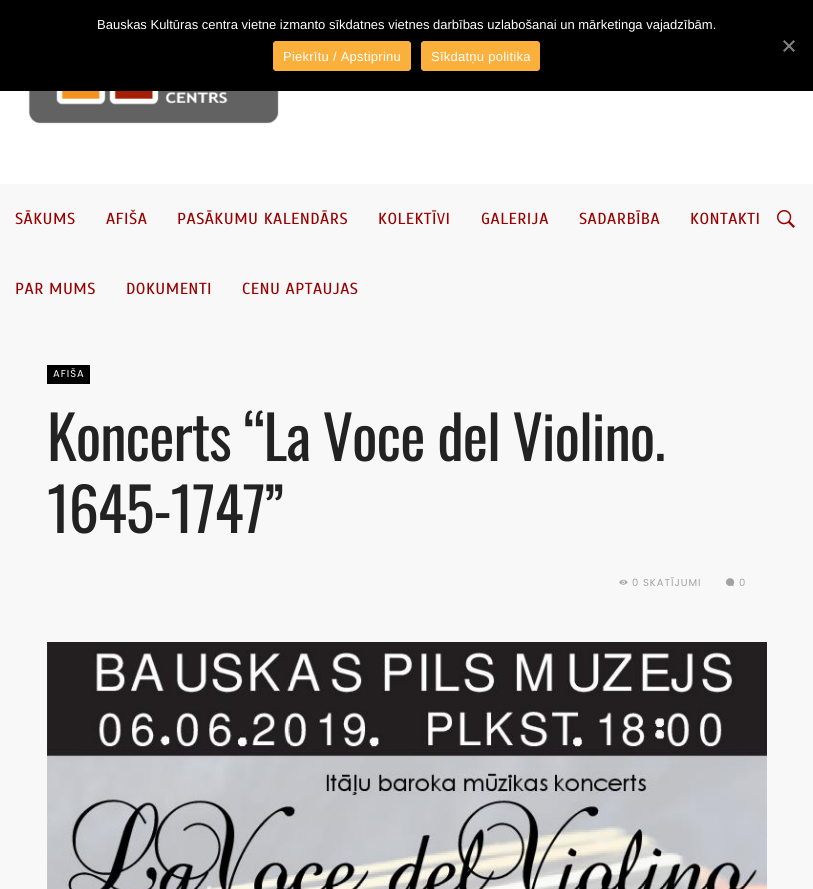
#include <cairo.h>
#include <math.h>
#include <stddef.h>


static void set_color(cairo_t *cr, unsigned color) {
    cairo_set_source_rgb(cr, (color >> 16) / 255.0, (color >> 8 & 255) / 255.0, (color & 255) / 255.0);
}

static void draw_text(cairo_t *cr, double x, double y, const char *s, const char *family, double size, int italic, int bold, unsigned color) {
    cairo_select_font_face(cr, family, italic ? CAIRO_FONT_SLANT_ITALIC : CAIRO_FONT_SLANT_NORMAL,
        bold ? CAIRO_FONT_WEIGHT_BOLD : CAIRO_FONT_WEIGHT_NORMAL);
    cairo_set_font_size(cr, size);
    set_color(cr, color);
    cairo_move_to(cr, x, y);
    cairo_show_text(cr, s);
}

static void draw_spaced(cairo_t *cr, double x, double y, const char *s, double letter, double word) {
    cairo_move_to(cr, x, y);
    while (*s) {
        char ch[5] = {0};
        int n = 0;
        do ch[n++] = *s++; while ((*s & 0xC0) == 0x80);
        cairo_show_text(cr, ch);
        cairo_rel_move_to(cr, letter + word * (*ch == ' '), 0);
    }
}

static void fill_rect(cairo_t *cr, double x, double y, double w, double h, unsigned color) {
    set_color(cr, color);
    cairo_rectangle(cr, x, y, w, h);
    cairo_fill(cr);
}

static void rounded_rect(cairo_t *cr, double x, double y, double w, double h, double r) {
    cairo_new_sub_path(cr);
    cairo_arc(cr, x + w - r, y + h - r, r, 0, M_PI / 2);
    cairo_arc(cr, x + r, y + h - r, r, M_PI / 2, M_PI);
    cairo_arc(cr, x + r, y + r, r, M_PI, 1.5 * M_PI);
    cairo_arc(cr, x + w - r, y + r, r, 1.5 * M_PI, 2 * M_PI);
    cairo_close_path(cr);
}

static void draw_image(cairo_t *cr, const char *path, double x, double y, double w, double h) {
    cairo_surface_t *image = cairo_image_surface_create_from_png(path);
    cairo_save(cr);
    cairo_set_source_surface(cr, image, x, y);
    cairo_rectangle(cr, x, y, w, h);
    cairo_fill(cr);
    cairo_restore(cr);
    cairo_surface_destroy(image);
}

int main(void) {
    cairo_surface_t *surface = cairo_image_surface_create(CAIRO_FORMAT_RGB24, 813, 889);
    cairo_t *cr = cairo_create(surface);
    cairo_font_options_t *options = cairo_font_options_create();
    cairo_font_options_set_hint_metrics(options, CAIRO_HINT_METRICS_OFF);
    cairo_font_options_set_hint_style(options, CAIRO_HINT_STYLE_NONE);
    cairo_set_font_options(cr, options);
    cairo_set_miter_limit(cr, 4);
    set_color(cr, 0xFFFFFF);
    cairo_paint(cr);
    fill_rect(cr, 0, 0, 813, 91, 0x000000);
    draw_text(cr, 97, 29, "Bauskas Kultūras centra vietne izmanto sīkdatnes vietnes darbības uzlabošanai un mārketinga vajadzībām.", "Liberation Sans", 13, 0, 0, 0xFFFFFF);
    set_color(cr, 0x808080);
    cairo_new_path(cr);
    cairo_move_to(cr, 793.5, 40);
    cairo_line_to(cr, 795, 41.5);
    cairo_line_to(cr, 784.5, 52);
    cairo_line_to(cr, 783, 50.5);
    cairo_close_path(cr);
    cairo_fill(cr);
    cairo_new_path(cr);
    cairo_move_to(cr, 783, 41.5);
    cairo_line_to(cr, 784.5, 40);
    cairo_line_to(cr, 795, 50.5);
    cairo_line_to(cr, 793.5, 52);
    cairo_close_path(cr);
    cairo_fill(cr);
    set_color(cr, 0xFBB03B);
    rounded_rect(cr, 273, 41, 138, 30, 3);
    cairo_fill(cr);
    set_color(cr, 0xFFFFFF);
    draw_spaced(cr, 283, 61, "Piekrītu / Apstiprinu", 0.25, 0);
    set_color(cr, 0xFBB03B);
    rounded_rect(cr, 421, 41, 119, 30, 3);
    cairo_fill(cr);
    set_color(cr, 0xFFFFFF);
    draw_spaced(cr, 431, 61, "Sīkdatņu politika", 0.25, 0);
    draw_image(cr, "assets/img1.png", 28, 91, 251, 33);
    fill_rect(cr, 0, 184, 813, 705, 0xF8F8F8);
    cairo_select_font_face(cr, "Scada", CAIRO_FONT_SLANT_NORMAL, CAIRO_FONT_WEIGHT_NORMAL);
    cairo_set_font_size(cr, 16);
    set_color(cr, 0x990100);
    draw_spaced(cr, 15, 224, "SĀKUMS", 0.5, 0);
    draw_spaced(cr, 106, 224, "AFIŠA", 0.5, 0);
    draw_spaced(cr, 177, 224, "PASĀKUMU KALENDĀRS", 0.5, 0);
    draw_spaced(cr, 378, 224, "KOLEKTĪVI", 0.5, 0);
    draw_spaced(cr, 481, 224, "GALERIJA", 0.5, 0);
    draw_spaced(cr, 579, 224, "SADARBĪBA", 0.5, 0);
    draw_spaced(cr, 690, 224, "KONTAKTI", 0.5, 0);
    draw_spaced(cr, 15, 294, "PAR MUMS", 0.5, 0);
    draw_spaced(cr, 126, 294, "DOKUMENTI", 0.5, 0);
    draw_spaced(cr, 242, 294, "CENU APTAUJAS", 0.5, 0);
    draw_image(cr, "assets/img2.png", 777, 210, 18, 18);
    fill_rect(cr, 47, 365, 43, 19, 0x000000);
    cairo_select_font_face(cr, "Poppins", CAIRO_FONT_SLANT_NORMAL, CAIRO_FONT_WEIGHT_NORMAL);
    cairo_set_font_size(cr, 10);
    set_color(cr, 0xFFFFFF);
    draw_spaced(cr, 53, 377, "AFIŠA", 1, 0);
    cairo_select_font_face(cr, "Oswald", CAIRO_FONT_SLANT_NORMAL, CAIRO_FONT_WEIGHT_NORMAL);
    cairo_set_font_size(cr, 60);
    set_color(cr, 0x222222);
    draw_spaced(cr, 47, 461, "Koncerts “La Voce del Violino.", -1, 0);
    draw_spaced(cr, 47, 533, "1645-1747”", -1, 0);
    draw_image(cr, "assets/img3.png", 619, 579, 9, 6);
    cairo_select_font_face(cr, "Poppins", CAIRO_FONT_SLANT_NORMAL, CAIRO_FONT_WEIGHT_NORMAL);
    cairo_set_font_size(cr, 10);
    set_color(cr, 0xA2A2A2);
    draw_spaced(cr, 632, 586, "0 SKATĪJUMI", 1, 0);
    draw_image(cr, "assets/img4.png", 726, 578, 9, 9);
    draw_spaced(cr, 739, 586, "0", 1, 0);
    draw_image(cr, "assets/img5.png", 47, 642, 720, 247);
    cairo_surface_write_to_png(surface, "output.png");
    cairo_font_options_destroy(options);
    cairo_destroy(cr);
    cairo_surface_destroy(surface);
    return 0;
}
